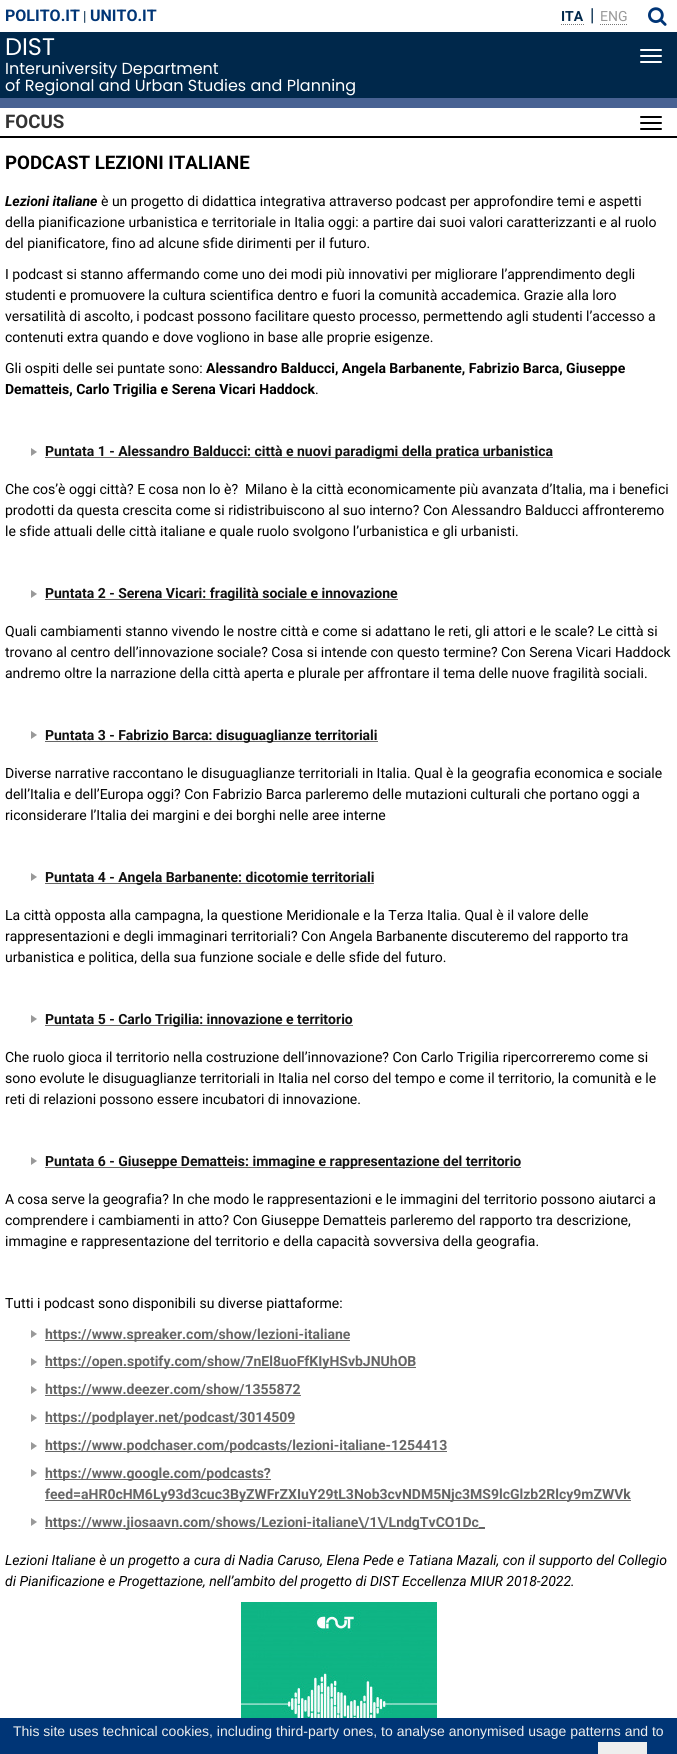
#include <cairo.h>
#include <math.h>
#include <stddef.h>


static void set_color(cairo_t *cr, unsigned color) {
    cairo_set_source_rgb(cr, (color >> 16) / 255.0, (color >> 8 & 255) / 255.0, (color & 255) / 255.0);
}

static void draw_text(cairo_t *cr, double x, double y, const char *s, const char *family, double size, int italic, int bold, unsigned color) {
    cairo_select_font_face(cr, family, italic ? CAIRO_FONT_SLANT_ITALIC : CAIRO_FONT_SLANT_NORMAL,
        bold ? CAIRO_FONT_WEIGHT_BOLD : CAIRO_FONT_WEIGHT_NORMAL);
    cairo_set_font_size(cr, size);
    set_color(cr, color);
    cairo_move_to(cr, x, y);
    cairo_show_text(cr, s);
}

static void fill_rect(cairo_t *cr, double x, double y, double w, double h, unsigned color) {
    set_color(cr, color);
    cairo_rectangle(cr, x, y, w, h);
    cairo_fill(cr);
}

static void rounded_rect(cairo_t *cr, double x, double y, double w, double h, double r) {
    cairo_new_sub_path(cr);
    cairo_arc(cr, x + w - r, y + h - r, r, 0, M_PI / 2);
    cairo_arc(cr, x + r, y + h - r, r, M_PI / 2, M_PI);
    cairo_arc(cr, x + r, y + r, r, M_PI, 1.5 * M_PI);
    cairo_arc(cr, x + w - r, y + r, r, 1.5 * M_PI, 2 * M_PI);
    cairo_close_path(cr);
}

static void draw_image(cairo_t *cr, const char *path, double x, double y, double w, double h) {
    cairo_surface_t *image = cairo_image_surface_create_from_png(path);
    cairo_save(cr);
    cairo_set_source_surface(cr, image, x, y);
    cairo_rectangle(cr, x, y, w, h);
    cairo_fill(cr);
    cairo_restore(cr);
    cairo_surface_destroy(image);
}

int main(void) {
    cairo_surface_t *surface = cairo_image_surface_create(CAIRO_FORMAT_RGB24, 677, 1754);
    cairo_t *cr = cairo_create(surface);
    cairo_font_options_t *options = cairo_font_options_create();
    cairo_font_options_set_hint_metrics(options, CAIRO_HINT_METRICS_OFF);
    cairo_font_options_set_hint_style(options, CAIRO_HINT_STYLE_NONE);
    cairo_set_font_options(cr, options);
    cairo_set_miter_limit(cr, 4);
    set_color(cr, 0xFFFFFF);
    cairo_paint(cr);
    draw_text(cr, 5, 21, "POLITO.IT", "Roboto", 16, 0, 1, 0x003576);
    draw_text(cr, 83, 21, "|", "Roboto", 14, 0, 0, 0x00284B);
    draw_text(cr, 90, 21, "UNITO.IT", "Roboto", 16, 0, 1, 0x003576);
    draw_text(cr, 561, 21, "ITA", "Roboto", 14, 0, 1, 0x00284B);
    cairo_new_path(cr);
    cairo_move_to(cr, 561, 24.5);
    cairo_line_to(cr, 584, 24.5);
    set_color(cr, 0x777777);
    cairo_set_line_width(cr, 1);
    cairo_set_dash(cr, (double[]){1, 1}, 2, 0);
    cairo_stroke(cr);
    draw_text(cr, 590, 21, "|", "Roboto", 18, 0, 0, 0x00284B);
    draw_text(cr, 600, 21, "ENG", "Roboto", 14, 0, 0, 0x999999);
    cairo_new_path(cr);
    cairo_move_to(cr, 600, 24.5);
    cairo_line_to(cr, 627, 24.5);
    set_color(cr, 0x777777);
    cairo_stroke(cr);
    draw_image(cr, "assets/img1.png", 648, 7, 19, 19);
    fill_rect(cr, 0, 32, 677, 66, 0x00284B);
    draw_text(cr, 5, 55, "DIST", "Poppins", 24, 0, 0, 0xFFFFFF);
    draw_text(cr, 5, 74, "Interuniversity Department", "Poppins", 16, 0, 0, 0xFFFFFF);
    draw_text(cr, 5, 91, "of Regional and Urban Studies and Planning", "Poppins", 16, 0, 0, 0xFFFFFF);
    rounded_rect(cr, 640, 49, 22, 2, 1);
    cairo_fill(cr);
    rounded_rect(cr, 640, 55, 22, 2, 1);
    cairo_fill(cr);
    rounded_rect(cr, 640, 61, 22, 2, 1);
    cairo_fill(cr);
    fill_rect(cr, 0, 98, 677, 10, 0x486293);
    fill_rect(cr, 0, 136, 677, 2, 0x000000);
    draw_text(cr, 5, 128, "FOCUS", "Roboto", 18.7, 0, 1, 0x333333);
    set_color(cr, 0x000000);
    rounded_rect(cr, 640, 116, 22, 2, 1);
    cairo_fill(cr);
    rounded_rect(cr, 640, 122, 22, 2, 1);
    cairo_fill(cr);
    rounded_rect(cr, 640, 128, 22, 2, 1);
    cairo_fill(cr);
    draw_text(cr, 5, 169, "PODCAST LEZIONI ITALIANE", "Roboto", 18.7, 0, 1, 0x000000);
    draw_text(cr, 5, 206, "Lezioni italiane", "Roboto", 14, 1, 1, 0x000000);
    draw_text(cr, 101, 206, "è un progetto di didattica integrativa attraverso podcast per approfondire temi e aspetti", "Roboto", 14, 0, 0, 0x000000);
    draw_text(cr, 5, 227, "della pianificazione urbanistica e territoriale in Italia oggi: a partire dai suoi valori caratterizzanti e al ruolo", "Roboto", 14, 0, 0, 0x000000);
    draw_text(cr, 5, 248, "del pianificatore, fino ad alcune sfide dirimenti per il futuro.", "Roboto", 14, 0, 0, 0x000000);
    draw_text(cr, 5, 279, "I podcast si stanno affermando come uno dei modi più innovativi per migliorare l’apprendimento degli", "Roboto", 14, 0, 0, 0x000000);
    draw_text(cr, 5, 300, "studenti e promuovere la cultura scientifica dentro e fuori la comunità accademica. Grazie alla loro", "Roboto", 14, 0, 0, 0x000000);
    draw_text(cr, 5, 321, "versatilità di ascolto, i podcast possono facilitare questo processo, permettendo agli studenti l’accesso a", "Roboto", 14, 0, 0, 0x000000);
    draw_text(cr, 5, 342, "contenuti extra quando e dove vogliono in base alle proprie esigenze.", "Roboto", 14, 0, 0, 0x000000);
    draw_text(cr, 5, 373, "Gli ospiti delle sei puntate sono:", "Roboto", 14, 0, 0, 0x000000);
    draw_text(cr, 206, 373, "Alessandro Balducci, Angela Barbanente, Fabrizio Barca, Giuseppe", "Roboto", 14, 0, 1, 0x000000);
    draw_text(cr, 5, 394, "Dematteis, Carlo Trigilia e Serena Vicari Haddock", "Roboto", 14, 0, 1, 0x000000);
    draw_text(cr, 315, 394, ".", "Roboto", 14, 0, 0, 0x000000);
    set_color(cr, 0x999999);
    cairo_new_path(cr);
    cairo_move_to(cr, 31, 456);
    cairo_line_to(cr, 31, 448);
    cairo_line_to(cr, 37, 452);
    cairo_close_path(cr);
    cairo_fill(cr);
    fill_rect(cr, 45, 457, 508, 1, 0x666666);
    draw_text(cr, 45, 456, "Puntata 1 - Alessandro Balducci: città e nuovi paradigmi della pratica urbanistica", "Roboto", 14, 0, 1, 0x111111);
    draw_text(cr, 5, 494, "Che cos’è oggi città? E cosa non lo è?  Milano è la città economicamente più avanzata d’Italia, ma i benefici", "Roboto", 14, 0, 0, 0x000000);
    draw_text(cr, 5, 515, "prodotti da questa crescita come si ridistribuiscono al suo interno? Con Alessandro Balducci affronteremo", "Roboto", 14, 0, 0, 0x000000);
    draw_text(cr, 5, 536, "le sfide attuali delle città italiane e quale ruolo svolgono l’urbanistica e gli urbanisti.", "Roboto", 14, 0, 0, 0x000000);
    set_color(cr, 0x999999);
    cairo_new_path(cr);
    cairo_move_to(cr, 31, 598);
    cairo_line_to(cr, 31, 590);
    cairo_line_to(cr, 37, 594);
    cairo_close_path(cr);
    cairo_fill(cr);
    fill_rect(cr, 45, 599, 353, 1, 0x666666);
    draw_text(cr, 45, 598, "Puntata 2 - Serena Vicari: fragilità sociale e innovazione", "Roboto", 14, 0, 1, 0x111111);
    draw_text(cr, 5, 636, "Quali cambiamenti stanno vivendo le nostre città e come si adattano le reti, gli attori e le scale? Le città si", "Roboto", 14, 0, 0, 0x000000);
    draw_text(cr, 5, 657, "trovano al centro dell’innovazione sociale? Cosa si intende con questo termine? Con Serena Vicari Haddock", "Roboto", 14, 0, 0, 0x000000);
    draw_text(cr, 5, 678, "andremo oltre la narrazione della città aperta e plurale per affrontare il tema delle nuove fragilità sociali.", "Roboto", 14, 0, 0, 0x000000);
    set_color(cr, 0x999999);
    cairo_new_path(cr);
    cairo_move_to(cr, 31, 739);
    cairo_line_to(cr, 31, 731);
    cairo_line_to(cr, 37, 735);
    cairo_close_path(cr);
    cairo_fill(cr);
    fill_rect(cr, 45, 741, 333, 1, 0x666666);
    draw_text(cr, 45, 740, "Puntata 3 - Fabrizio Barca: disuguaglianze territoriali", "Roboto", 14, 0, 1, 0x111111);
    draw_text(cr, 5, 778, "Diverse narrative raccontano le disuguaglianze territoriali in Italia. Qual è la geografia economica e sociale", "Roboto", 14, 0, 0, 0x000000);
    draw_text(cr, 5, 799, "dell’Italia e dell’Europa oggi? Con Fabrizio Barca parleremo delle mutazioni culturali che portano oggi a", "Roboto", 14, 0, 0, 0x000000);
    draw_text(cr, 5, 820, "riconsiderare l’Italia dei margini e dei borghi nelle aree interne", "Roboto", 14, 0, 0, 0x000000);
    set_color(cr, 0x999999);
    cairo_new_path(cr);
    cairo_move_to(cr, 31, 881);
    cairo_line_to(cr, 31, 873);
    cairo_line_to(cr, 37, 877);
    cairo_close_path(cr);
    cairo_fill(cr);
    fill_rect(cr, 45, 883, 329, 1, 0x666666);
    draw_text(cr, 45, 882, "Puntata 4 - Angela Barbanente: dicotomie territoriali", "Roboto", 14, 0, 1, 0x111111);
    draw_text(cr, 5, 920, "La città opposta alla campagna, la questione Meridionale e la Terza Italia. Qual è il valore delle", "Roboto", 14, 0, 0, 0x000000);
    draw_text(cr, 5, 941, "rappresentazioni e degli immaginari territoriali? Con Angela Barbanente discuteremo del rapporto tra", "Roboto", 14, 0, 0, 0x000000);
    draw_text(cr, 5, 962, "urbanistica e politica, della sua funzione sociale e delle sfide del futuro.", "Roboto", 14, 0, 0, 0x000000);
    set_color(cr, 0x999999);
    cairo_new_path(cr);
    cairo_move_to(cr, 31, 1023);
    cairo_line_to(cr, 31, 1015);
    cairo_line_to(cr, 37, 1019);
    cairo_close_path(cr);
    cairo_fill(cr);
    fill_rect(cr, 45, 1025, 308, 1, 0x666666);
    draw_text(cr, 45, 1024, "Puntata 5 - Carlo Trigilia: innovazione e territorio", "Roboto", 14, 0, 1, 0x111111);
    draw_text(cr, 5, 1062, "Che ruolo gioca il territorio nella costruzione dell’innovazione? Con Carlo Trigilia ripercorreremo come si", "Roboto", 14, 0, 0, 0x000000);
    draw_text(cr, 5, 1083, "sono evolute le disuguaglianze territoriali in Italia nel corso del tempo e come il territorio, la comunità e le", "Roboto", 14, 0, 0, 0x000000);
    draw_text(cr, 5, 1104, "reti di relazioni possono essere incubatori di innovazione.", "Roboto", 14, 0, 0, 0x000000);
    set_color(cr, 0x999999);
    cairo_new_path(cr);
    cairo_move_to(cr, 31, 1165);
    cairo_line_to(cr, 31, 1157);
    cairo_line_to(cr, 37, 1161);
    cairo_close_path(cr);
    cairo_fill(cr);
    fill_rect(cr, 45, 1167, 476, 1, 0x666666);
    draw_text(cr, 45, 1166, "Puntata 6 - Giuseppe Dematteis: immagine e rappresentazione del territorio", "Roboto", 14, 0, 1, 0x111111);
    draw_text(cr, 5, 1204, "A cosa serve la geografia? In che modo le rappresentazioni e le immagini del territorio possono aiutarci a", "Roboto", 14, 0, 0, 0x000000);
    draw_text(cr, 5, 1225, "comprendere i cambiamenti in atto? Con Giuseppe Dematteis parleremo del rapporto tra descrizione,", "Roboto", 14, 0, 0, 0x000000);
    draw_text(cr, 5, 1246, "immagine e rappresentazione del territorio e della capacità sovversiva della geografia.", "Roboto", 14, 0, 0, 0x000000);
    draw_text(cr, 5, 1308, "Tutti i podcast sono disponibili su diverse piattaforme:", "Roboto", 14, 0, 0, 0x000000);
    set_color(cr, 0x999999);
    cairo_new_path(cr);
    cairo_move_to(cr, 31, 1338);
    cairo_line_to(cr, 31, 1330);
    cairo_line_to(cr, 37, 1334);
    cairo_close_path(cr);
    cairo_move_to(cr, 31, 1366);
    cairo_line_to(cr, 31, 1358);
    cairo_line_to(cr, 37, 1362);
    cairo_close_path(cr);
    cairo_fill(cr);
    fill_rect(cr, 45, 1340, 305, 1, 0x666666);
    draw_text(cr, 45, 1339, "https://www.spreaker.com/show/lezioni-italiane", "Roboto", 14, 0, 1, 0x666666);
    fill_rect(cr, 45, 1367, 371, 1, 0x666666);
    draw_text(cr, 45, 1366, "https://open.spotify.com/show/7nEl8uoFfKIyHSvbJNUhOB", "Roboto", 14, 0, 1, 0x666666);
    set_color(cr, 0x999999);
    cairo_new_path(cr);
    cairo_move_to(cr, 31, 1394);
    cairo_line_to(cr, 31, 1386);
    cairo_line_to(cr, 37, 1390);
    cairo_close_path(cr);
    cairo_move_to(cr, 31, 1422);
    cairo_line_to(cr, 31, 1414);
    cairo_line_to(cr, 37, 1418);
    cairo_close_path(cr);
    cairo_fill(cr);
    fill_rect(cr, 45, 1395, 256, 1, 0x666666);
    draw_text(cr, 45, 1394, "https://www.deezer.com/show/1355872", "Roboto", 14, 0, 1, 0x666666);
    fill_rect(cr, 45, 1423, 250, 1, 0x666666);
    draw_text(cr, 45, 1422, "https://podplayer.net/podcast/3014509", "Roboto", 14, 0, 1, 0x666666);
    set_color(cr, 0x999999);
    cairo_new_path(cr);
    cairo_move_to(cr, 31, 1450);
    cairo_line_to(cr, 31, 1442);
    cairo_line_to(cr, 37, 1446);
    cairo_close_path(cr);
    cairo_move_to(cr, 31, 1477);
    cairo_line_to(cr, 31, 1469);
    cairo_line_to(cr, 37, 1473);
    cairo_close_path(cr);
    cairo_fill(cr);
    fill_rect(cr, 45, 1451, 402, 1, 0x666666);
    draw_text(cr, 45, 1450, "https://www.podchaser.com/podcasts/lezioni-italiane-1254413", "Roboto", 14, 0, 1, 0x666666);
    fill_rect(cr, 45, 1479, 226, 1, 0x666666);
    draw_text(cr, 45, 1478, "https://www.google.com/podcasts?", "Roboto", 14, 0, 1, 0x666666);
    fill_rect(cr, 45, 1500, 586, 1, 0x666666);
    draw_text(cr, 45, 1499, "feed=aHR0cHM6Ly93d3cuc3ByZWFrZXIuY29tL3Nob3cvNDM5Njc3MS9lcGlzb2Rlcy9mZWVk", "Roboto", 14, 0, 1, 0x666666);
    set_color(cr, 0x999999);
    cairo_new_path(cr);
    cairo_move_to(cr, 31, 1526);
    cairo_line_to(cr, 31, 1518);
    cairo_line_to(cr, 37, 1522);
    cairo_close_path(cr);
    cairo_fill(cr);
    fill_rect(cr, 45, 1528, 440, 1, 0x666666);
    draw_text(cr, 45, 1527, "https://www.jiosaavn.com/shows/Lezioni-italiane\\/1\\/LndgTvCO1Dc_", "Roboto", 14, 0, 1, 0x666666);
    draw_text(cr, 5, 1565, "Lezioni Italiane è un progetto a cura di Nadia Caruso, Elena Pede e Tatiana Mazali, con il supporto del Collegio", "Roboto", 14, 1, 0, 0x000000);
    draw_text(cr, 5, 1586, "di Pianificazione e Progettazione, nell’ambito del progetto di DIST Eccellenza MIUR 2018-2022.", "Roboto", 14, 1, 0, 0x000000);
    draw_image(cr, "assets/img2.png", 241, 1602, 196, 116);
    fill_rect(cr, 0, 1718, 677, 36, 0x003576);
    draw_text(cr, 13, 1736, "This site uses technical cookies, including third-party ones, to analyse anonymised usage patterns and to", "Liberation Sans", 14, 0, 0, 0xEEEEEE);
    fill_rect(cr, 598, 1742, 49, 12, 0xEEEEEE);
    cairo_surface_write_to_png(surface, "output.png");
    cairo_font_options_destroy(options);
    cairo_destroy(cr);
    cairo_surface_destroy(surface);
    return 0;
}
